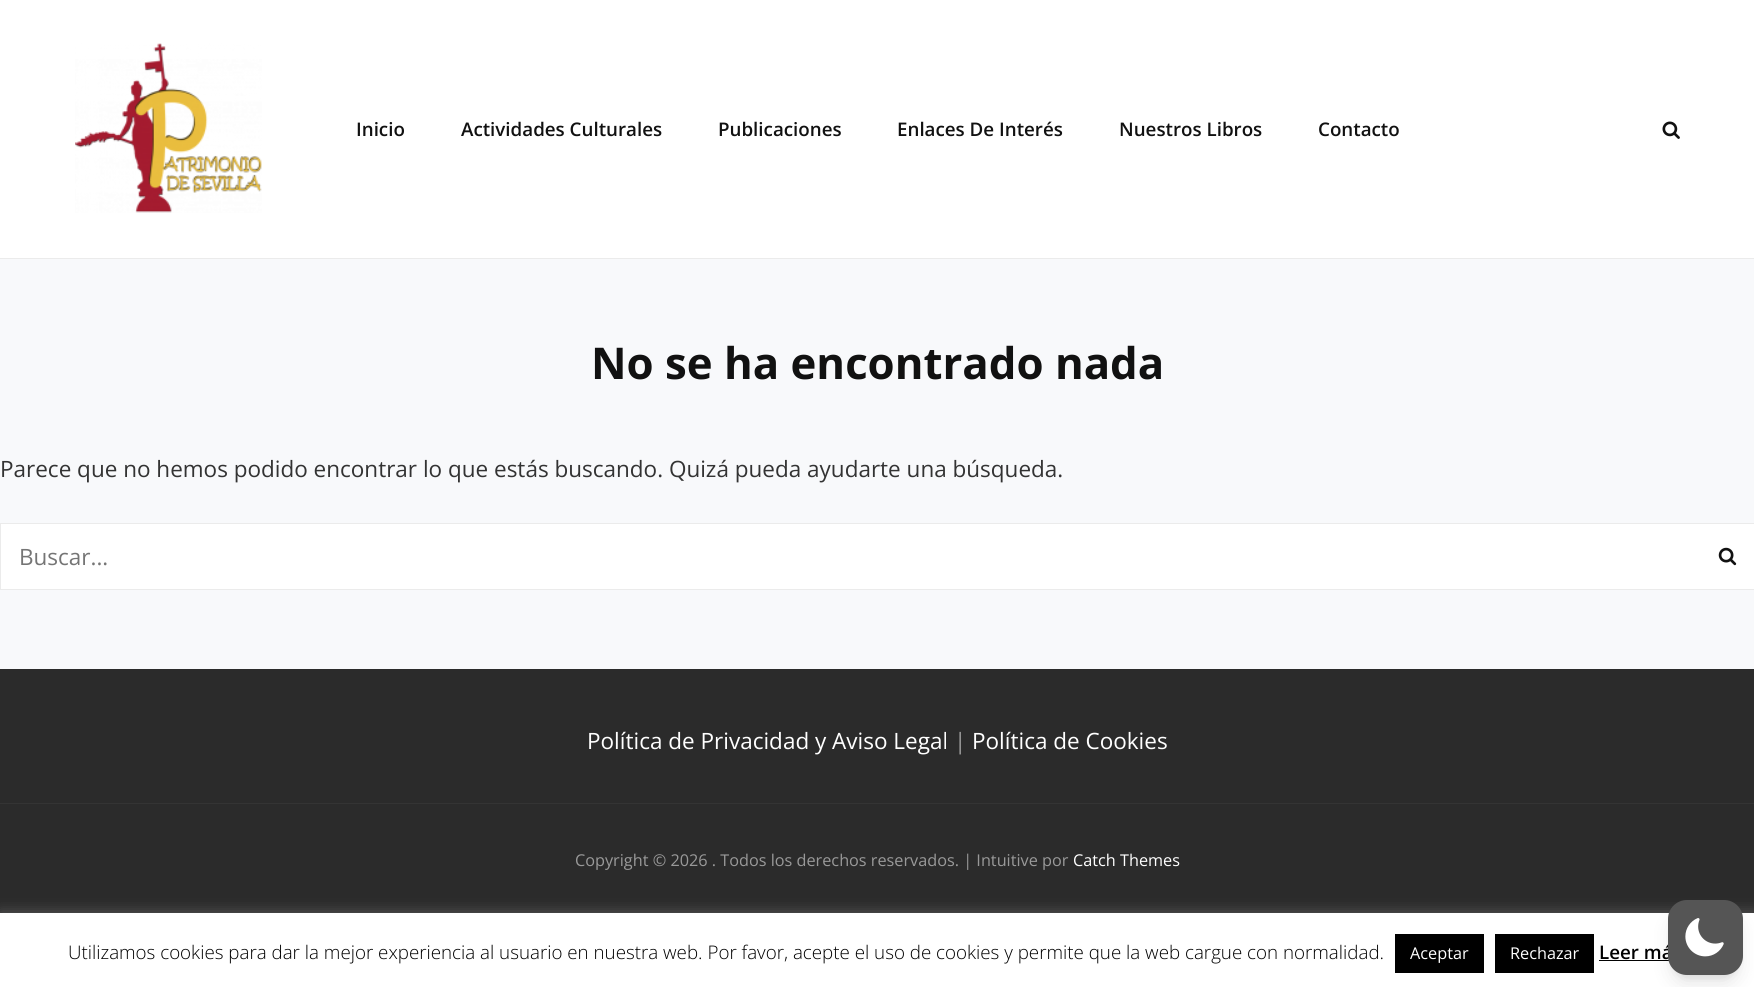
#include <cairo.h>
#include <math.h>
#include <stddef.h>


static void set_color(cairo_t *cr, unsigned color) {
    cairo_set_source_rgb(cr, (color >> 16) / 255.0, (color >> 8 & 255) / 255.0, (color & 255) / 255.0);
}

static void draw_text(cairo_t *cr, double x, double y, const char *s, const char *family, double size, int italic, int bold, unsigned color) {
    cairo_select_font_face(cr, family, italic ? CAIRO_FONT_SLANT_ITALIC : CAIRO_FONT_SLANT_NORMAL,
        bold ? CAIRO_FONT_WEIGHT_BOLD : CAIRO_FONT_WEIGHT_NORMAL);
    cairo_set_font_size(cr, size);
    set_color(cr, color);
    cairo_move_to(cr, x, y);
    cairo_show_text(cr, s);
}

static void fill_rect(cairo_t *cr, double x, double y, double w, double h, unsigned color) {
    set_color(cr, color);
    cairo_rectangle(cr, x, y, w, h);
    cairo_fill(cr);
}

static void rounded_rect(cairo_t *cr, double x, double y, double w, double h, double r) {
    cairo_new_sub_path(cr);
    cairo_arc(cr, x + w - r, y + h - r, r, 0, M_PI / 2);
    cairo_arc(cr, x + r, y + h - r, r, M_PI / 2, M_PI);
    cairo_arc(cr, x + r, y + r, r, M_PI, 1.5 * M_PI);
    cairo_arc(cr, x + w - r, y + r, r, 1.5 * M_PI, 2 * M_PI);
    cairo_close_path(cr);
}

static void draw_shadow(cairo_t *cr, double x, double y, double w, double h, double r, double blur, double alpha) {
    cairo_push_group_with_content(cr, CAIRO_CONTENT_ALPHA);
    cairo_set_operator(cr, CAIRO_OPERATOR_SOURCE);
    for (int i = 15; i >= -15 && fmin(w, h) + blur * i / 3 > 0; i -= 2) {
        double e = blur * i / 6;
        cairo_set_source_rgba(cr, 0, 0, 0, alpha * erfc((i - 1) / 8.5) / 2);
        rounded_rect(cr, x - e, y - e, w + 2 * e, h + 2 * e, fmax(0, fmin(r + e + blur * .6, fmin(w, h) / 2 + e)));
        cairo_fill(cr);
    }
    cairo_pattern_t *soft = cairo_pop_group(cr);
    cairo_mask(cr, soft);
    cairo_pattern_destroy(soft);
}

static void draw_image(cairo_t *cr, const char *path, double x, double y, double w, double h) {
    cairo_surface_t *image = cairo_image_surface_create_from_png(path);
    cairo_save(cr);
    cairo_set_source_surface(cr, image, x, y);
    cairo_rectangle(cr, x, y, w, h);
    cairo_fill(cr);
    cairo_restore(cr);
    cairo_surface_destroy(image);
}

int main(void) {
    cairo_surface_t *surface = cairo_image_surface_create(CAIRO_FORMAT_RGB24, 1754, 987);
    cairo_t *cr = cairo_create(surface);
    cairo_font_options_t *options = cairo_font_options_create();
    cairo_font_options_set_hint_metrics(options, CAIRO_HINT_METRICS_OFF);
    cairo_font_options_set_hint_style(options, CAIRO_HINT_STYLE_NONE);
    cairo_set_font_options(cr, options);
    cairo_set_miter_limit(cr, 4);
    set_color(cr, 0xFFFFFF);
    cairo_paint(cr);
    fill_rect(cr, 0, 258, 1754, 1, 0xEBEBEB);
    draw_image(cr, "assets/img1.png", 75, 43, 187, 170);
    draw_text(cr, 356, 136, "Inicio", "Open Sans SemiBold", 18.75, 0, 0, 0x111111);
    draw_text(cr, 461, 136, "Actividades Culturales", "Open Sans SemiBold", 18.75, 0, 0, 0x111111);
    draw_text(cr, 718, 136, "Publicaciones", "Open Sans SemiBold", 18.75, 0, 0, 0x111111);
    draw_text(cr, 897, 136, "Enlaces De Interés", "Open Sans SemiBold", 18.75, 0, 0, 0x111111);
    draw_text(cr, 1119, 136, "Nuestros Libros", "Open Sans SemiBold", 18.75, 0, 0, 0x111111);
    draw_text(cr, 1318, 136, "Contacto", "Open Sans SemiBold", 18.75, 0, 0, 0x111111);
    draw_image(cr, "assets/img2.png", 1662, 121, 18, 18);
    fill_rect(cr, 0, 259, 1754, 410, 0xF8F9FB);
    draw_text(cr, 591, 379, "No se ha encontrado nada", "Open Sans", 43.75, 0, 1, 0x111111);
    draw_text(cr, 0, 477, "Parece que no hemos podido encontrar lo que estás buscando. Quizá pueda ayudarte una búsqueda.", "Open Sans", 22.5, 0, 0, 0x333333);
    set_color(cr, 0xFFFFFF);
    cairo_rectangle(cr, 0.5, 523.5, 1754, 66);
    cairo_fill_preserve(cr);
    set_color(cr, 0xEBEBEB);
    cairo_set_line_width(cr, 1);
    cairo_stroke(cr);
    draw_text(cr, 19, 565, "Buscar...", "Open Sans", 22.5, 0, 0, 0x757575);
    draw_image(cr, "assets/img3.png", 1718, 547, 19, 19);
    fill_rect(cr, 0, 669, 1754, 244, 0x2B2B2B);
    draw_text(cr, 587, 749, "Política de Privacidad y Aviso Legal", "Open Sans", 22.5, 0, 0, 0xFFFFFF);
    draw_text(cr, 954, 749, "|", "Open Sans", 22.5, 0, 0, 0x999999);
    draw_text(cr, 972, 749, "Política de Cookies", "Open Sans", 22.5, 0, 0, 0xFFFFFF);
    fill_rect(cr, 0, 803, 1754, 1, 0x343434);
    draw_text(cr, 575, 866, "Copyright © 2026 . Todos los derechos reservados. | Intuitive por", "Open Sans", 16.25, 0, 0, 0x999999);
    draw_text(cr, 1073, 866, "Catch Themes", "Open Sans", 16.25, 0, 0, 0xFFFFFF);
    set_color(cr, 0xACABAB);
    draw_shadow(cr, 0, 911, 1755, 75, 0, 6, 0.3);
    fill_rect(cr, 0, 913, 1754, 74, 0xFFFFFF);
    draw_text(cr, 68, 959, "Utilizamos cookies para dar la mejor experiencia al usuario en nuestra web. Por favor, acepte el uso de cookies y permite que la web cargue con normalidad.", "Open Sans Light", 18.75, 0, 0, 0x000000);
    fill_rect(cr, 1395, 934, 89, 39, 0x000000);
    draw_text(cr, 1410, 959, "Aceptar", "Open Sans", 16.25, 0, 0, 0xFFFFFF);
    fill_rect(cr, 1495, 934, 99, 39, 0x000000);
    draw_text(cr, 1510, 959, "Rechazar", "Open Sans", 16.25, 0, 0, 0xFFFFFF);
    draw_text(cr, 1599, 959, "Leer má", "Open Sans SemiBold", 18.75, 0, 0, 0x000000);
    fill_rect(cr, 1599, 960, 70, 1, 0x020202);
    set_color(cr, 0x000000);
    draw_shadow(cr, 1673, 910, 65, 65, 14, 4, 0.1);
    draw_shadow(cr, 1671, 916, 68, 68, 15, 9.5, 0.1);
    set_color(cr, 0x555555);
    rounded_rect(cr, 1668, 900, 75, 75, 19);
    cairo_fill(cr);
    draw_image(cr, "assets/img4.png", 1685, 918, 39, 39);
    cairo_surface_write_to_png(surface, "output.png");
    cairo_font_options_destroy(options);
    cairo_destroy(cr);
    cairo_surface_destroy(surface);
    return 0;
}
